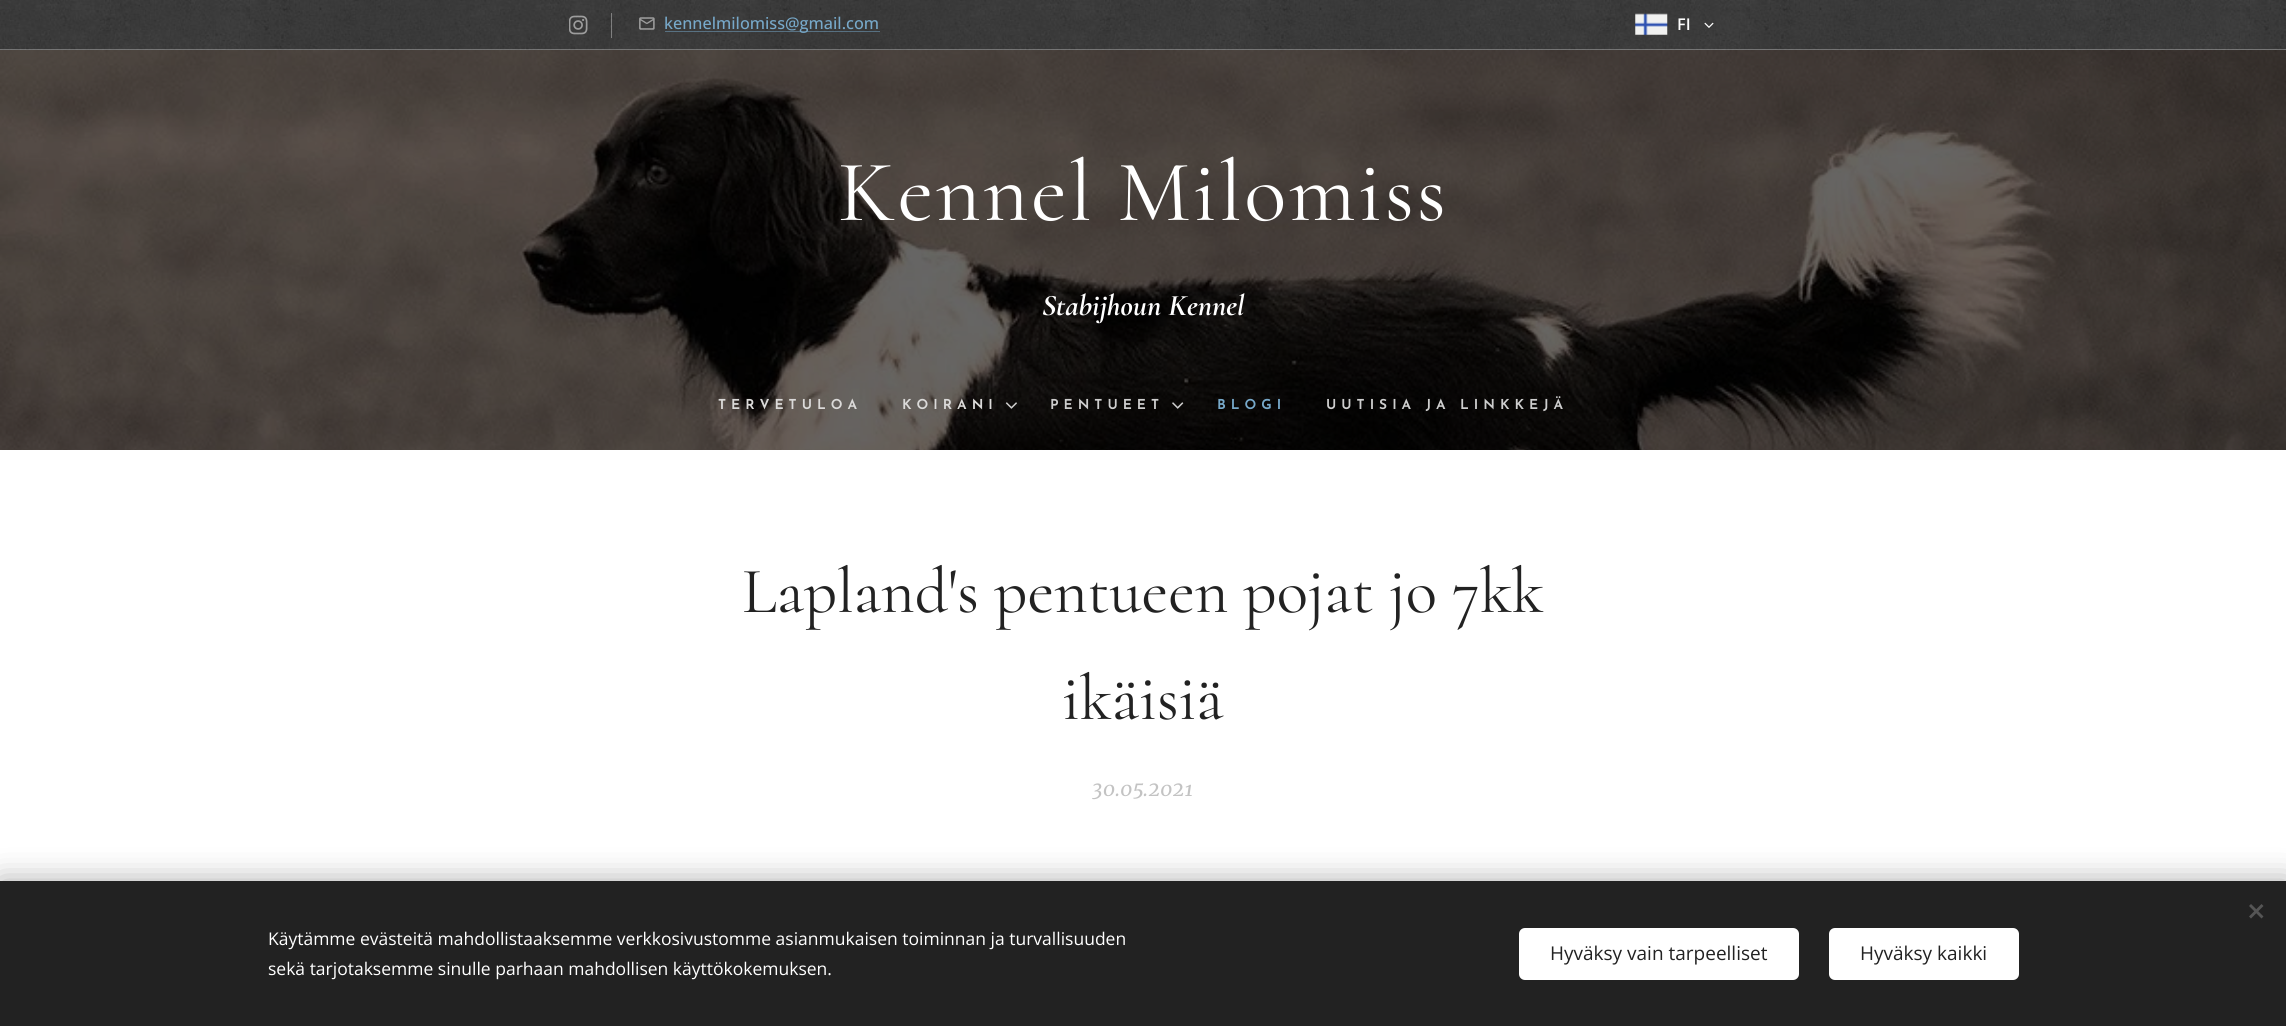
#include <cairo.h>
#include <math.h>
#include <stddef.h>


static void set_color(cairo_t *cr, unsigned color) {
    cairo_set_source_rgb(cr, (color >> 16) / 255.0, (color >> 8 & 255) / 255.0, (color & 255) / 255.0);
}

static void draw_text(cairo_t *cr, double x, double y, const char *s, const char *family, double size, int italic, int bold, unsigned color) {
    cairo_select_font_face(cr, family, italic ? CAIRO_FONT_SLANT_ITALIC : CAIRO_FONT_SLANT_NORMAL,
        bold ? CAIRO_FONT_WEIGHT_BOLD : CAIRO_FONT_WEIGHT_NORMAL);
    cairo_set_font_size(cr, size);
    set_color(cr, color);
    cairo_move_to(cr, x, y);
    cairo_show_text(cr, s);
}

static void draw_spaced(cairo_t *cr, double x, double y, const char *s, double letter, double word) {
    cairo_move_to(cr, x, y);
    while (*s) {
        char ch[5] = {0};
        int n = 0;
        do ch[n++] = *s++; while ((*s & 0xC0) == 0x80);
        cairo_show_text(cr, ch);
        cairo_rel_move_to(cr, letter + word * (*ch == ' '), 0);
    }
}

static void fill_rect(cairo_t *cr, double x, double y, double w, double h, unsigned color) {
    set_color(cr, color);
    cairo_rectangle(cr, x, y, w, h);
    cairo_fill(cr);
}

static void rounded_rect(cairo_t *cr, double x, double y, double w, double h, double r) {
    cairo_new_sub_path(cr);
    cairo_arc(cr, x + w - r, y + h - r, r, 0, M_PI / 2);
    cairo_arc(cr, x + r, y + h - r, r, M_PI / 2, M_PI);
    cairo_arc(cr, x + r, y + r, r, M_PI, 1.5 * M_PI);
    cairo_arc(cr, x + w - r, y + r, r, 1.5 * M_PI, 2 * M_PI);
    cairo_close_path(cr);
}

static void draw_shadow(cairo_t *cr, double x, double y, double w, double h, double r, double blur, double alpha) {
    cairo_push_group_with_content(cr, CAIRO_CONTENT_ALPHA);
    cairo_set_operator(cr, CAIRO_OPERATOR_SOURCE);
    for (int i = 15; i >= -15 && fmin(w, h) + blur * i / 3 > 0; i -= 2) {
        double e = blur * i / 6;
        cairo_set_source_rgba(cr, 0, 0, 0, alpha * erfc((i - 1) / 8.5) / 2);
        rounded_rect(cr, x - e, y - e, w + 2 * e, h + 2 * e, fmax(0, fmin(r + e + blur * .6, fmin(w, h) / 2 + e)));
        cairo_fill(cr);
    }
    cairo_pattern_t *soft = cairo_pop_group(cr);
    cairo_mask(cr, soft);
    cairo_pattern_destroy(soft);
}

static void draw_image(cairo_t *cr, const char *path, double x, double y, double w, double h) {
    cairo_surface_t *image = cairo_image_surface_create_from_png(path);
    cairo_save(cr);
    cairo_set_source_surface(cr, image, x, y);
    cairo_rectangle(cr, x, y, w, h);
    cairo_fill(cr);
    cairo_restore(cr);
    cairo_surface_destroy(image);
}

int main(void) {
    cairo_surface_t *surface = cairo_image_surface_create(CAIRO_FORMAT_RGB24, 2286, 1026);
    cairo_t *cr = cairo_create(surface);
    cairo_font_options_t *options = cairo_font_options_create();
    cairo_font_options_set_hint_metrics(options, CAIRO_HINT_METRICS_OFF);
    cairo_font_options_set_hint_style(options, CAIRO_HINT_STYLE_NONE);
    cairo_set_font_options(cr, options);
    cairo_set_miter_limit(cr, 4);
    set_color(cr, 0xFFFFFF);
    cairo_paint(cr);
    draw_image(cr, "assets/img1.png", 0, 0, 2286, 50);
    draw_image(cr, "assets/img2.png", 569, 15, 19, 20);
    cairo_set_source_rgba(cr, 1, 1, 1, 0.35);
    cairo_rectangle(cr, 611, 13, 1, 25);
    cairo_fill(cr);
    draw_image(cr, "assets/img3.png", 639, 17, 16, 13);
    cairo_set_source_rgba(cr, 0.467, 0.663, 0.792, 0.5);
    cairo_rectangle(cr, 665, 31, 215, 1);
    cairo_fill(cr);
    draw_text(cr, 664, 29, "kennelmilomiss@gmail.com", "Open Sans Medium", 16.25, 0, 0, 0x77A9CA);
    draw_image(cr, "assets/img4.png", 1635, 13, 33, 22);
    draw_text(cr, 1677, 30, "FI", "Open Sans SemiBold", 16.25, 0, 0, 0xFFFFFF);
    draw_image(cr, "assets/img5.png", 1704, 22, 10, 6);
    cairo_set_source_rgba(cr, 1, 1, 1, 0.3);
    cairo_rectangle(cr, 0, 49, 2286, 1);
    cairo_fill(cr);
    draw_image(cr, "assets/img6.png", 0, 50, 2286, 400);
    cairo_select_font_face(cr, "Cormorant", CAIRO_FONT_SLANT_NORMAL, CAIRO_FONT_WEIGHT_NORMAL);
    cairo_set_font_size(cr, 87.5);
    set_color(cr, 0xFFFFFF);
    draw_spaced(cr, 838, 220, "Kennel Milomiss", 2.5, 0);
    draw_text(cr, 1042, 315, "Stabijhoun Kennel", "Cormorant", 30, 1, 1, 0xFFFFFF);
    cairo_select_font_face(cr, "Josefin Sans SemiBold", CAIRO_FONT_SLANT_NORMAL, CAIRO_FONT_WEIGHT_NORMAL);
    cairo_set_font_size(cr, 13.75);
    set_color(cr, 0xDBDAD9);
    draw_spaced(cr, 718, 409, "TERVETULOA", 5, 0);
    draw_spaced(cr, 902, 409, "KOIRANI", 5, 0);
    draw_image(cr, "assets/img7.png", 1005, 402, 12, 7);
    set_color(cr, 0xCECECE);
    draw_spaced(cr, 1050, 409, "PENTUEET", 5, 0);
    draw_image(cr, "assets/img8.png", 1172, 402, 12, 7);
    set_color(cr, 0x77A9CA);
    draw_spaced(cr, 1217, 409, "BLOGI", 5, 0);
    set_color(cr, 0xCECECE);
    draw_spaced(cr, 1326, 409, "UUTISIA JA LINKKEJÄ", 5, 0);
    draw_text(cr, 742, 612, "Lapland's pentueen pojat jo 7kk", "Cormorant", 65, 0, 0, 0x222222);
    draw_text(cr, 1062, 719, "ikäisiä", "Cormorant", 65, 0, 0, 0x222222);
    draw_text(cr, 1092, 796, "30.05.2021", "Merriweather", 20, 1, 0, 0xC3C3C3);
    set_color(cr, 0x000000);
    draw_shadow(cr, 0, 881, 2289, 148, 0, 15.5, 0.33);
    fill_rect(cr, 0, 881, 2286, 145, 0x222222);
    set_color(cr, 0x555555);
    cairo_new_path(cr);
    cairo_move_to(cr, 2249, 916.5);
    cairo_line_to(cr, 2261.5, 904);
    cairo_line_to(cr, 2263.5, 906);
    cairo_line_to(cr, 2251, 918.5);
    cairo_close_path(cr);
    cairo_fill(cr);
    cairo_new_path(cr);
    cairo_move_to(cr, 2251, 904);
    cairo_line_to(cr, 2263.5, 916.5);
    cairo_line_to(cr, 2261.5, 918.5);
    cairo_line_to(cr, 2249, 906);
    cairo_close_path(cr);
    cairo_fill(cr);
    draw_text(cr, 268, 945, "Käytämme evästeitä mahdollistaaksemme verkkosivustomme asianmukaisen toiminnan ja turvallisuuden", "Open Sans", 17.5, 0, 0, 0xFFFFFF);
    draw_text(cr, 268, 975, "sekä tarjotaksemme sinulle parhaan mahdollisen käyttökokemuksen.", "Open Sans", 17.5, 0, 0, 0xFFFFFF);
    rounded_rect(cr, 1519, 928, 280, 52, 6);
    cairo_fill(cr);
    draw_text(cr, 1550, 960, "Hyväksy vain tarpeelliset", "Open Sans", 19, 0, 0, 0x222222);
    set_color(cr, 0xFFFFFF);
    rounded_rect(cr, 1829, 928, 190, 52, 6);
    cairo_fill(cr);
    draw_text(cr, 1860, 960, "Hyväksy kaikki", "Open Sans", 19, 0, 0, 0x222222);
    cairo_surface_write_to_png(surface, "output.png");
    cairo_font_options_destroy(options);
    cairo_destroy(cr);
    cairo_surface_destroy(surface);
    return 0;
}
